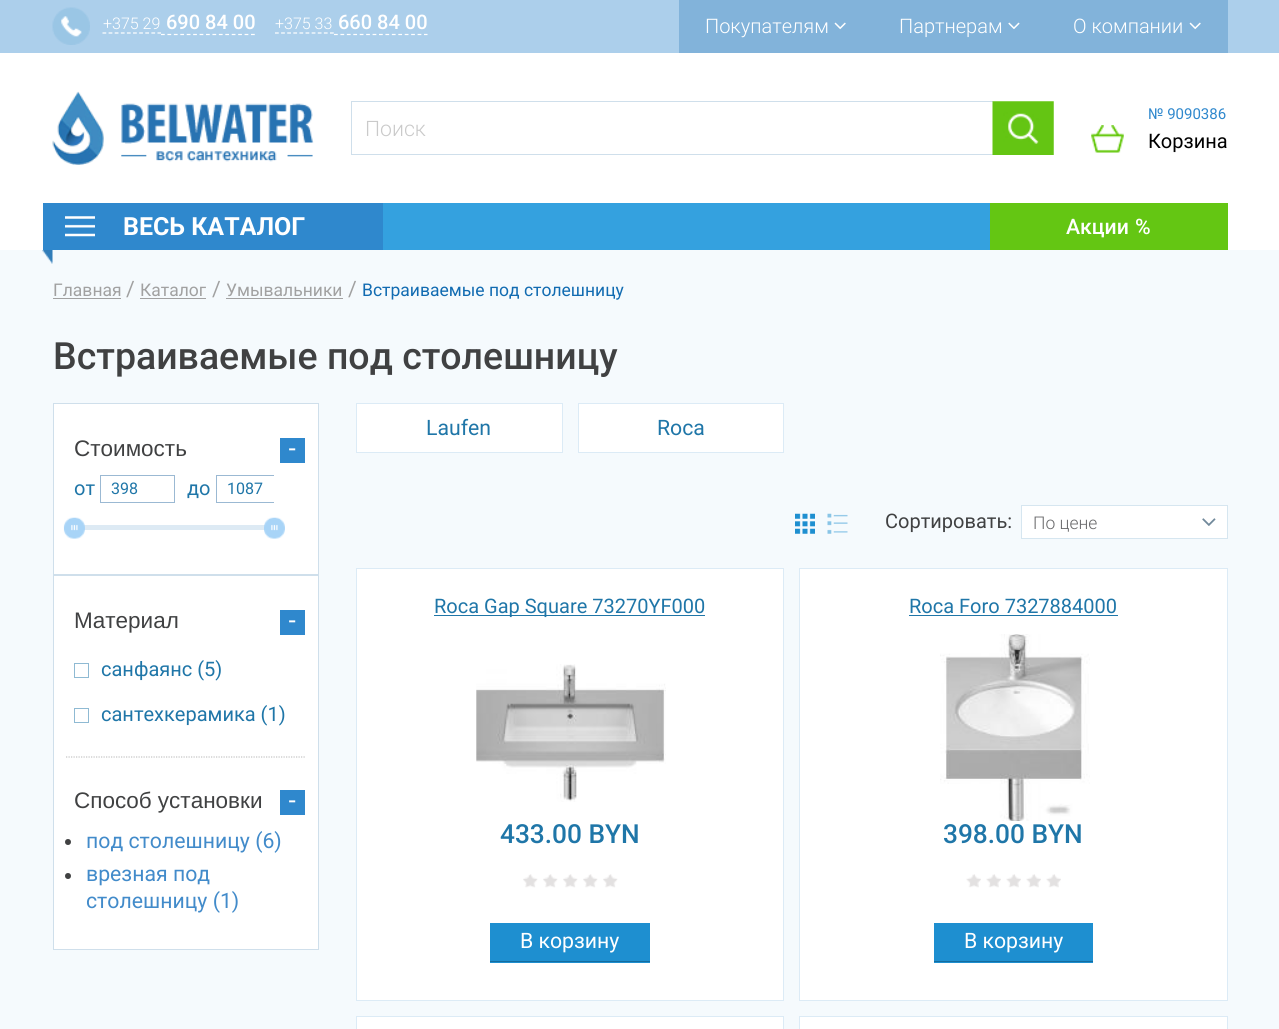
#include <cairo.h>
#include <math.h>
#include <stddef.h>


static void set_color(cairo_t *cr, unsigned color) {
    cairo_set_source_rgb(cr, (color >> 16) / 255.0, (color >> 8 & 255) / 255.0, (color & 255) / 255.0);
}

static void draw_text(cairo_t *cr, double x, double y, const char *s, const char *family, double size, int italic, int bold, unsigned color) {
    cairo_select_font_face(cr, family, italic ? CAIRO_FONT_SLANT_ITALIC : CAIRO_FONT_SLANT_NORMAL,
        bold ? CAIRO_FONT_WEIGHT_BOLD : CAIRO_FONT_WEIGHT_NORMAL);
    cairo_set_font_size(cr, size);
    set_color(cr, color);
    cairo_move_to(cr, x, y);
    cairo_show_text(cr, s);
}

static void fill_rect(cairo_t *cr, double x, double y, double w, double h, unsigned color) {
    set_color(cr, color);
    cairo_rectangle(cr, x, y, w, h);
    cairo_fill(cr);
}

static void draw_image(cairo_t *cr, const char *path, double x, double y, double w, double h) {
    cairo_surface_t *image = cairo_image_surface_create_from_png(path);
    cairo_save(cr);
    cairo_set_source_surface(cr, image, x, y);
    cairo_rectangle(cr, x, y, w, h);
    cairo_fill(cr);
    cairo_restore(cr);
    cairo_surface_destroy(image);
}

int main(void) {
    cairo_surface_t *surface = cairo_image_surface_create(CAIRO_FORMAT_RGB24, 1279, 1029);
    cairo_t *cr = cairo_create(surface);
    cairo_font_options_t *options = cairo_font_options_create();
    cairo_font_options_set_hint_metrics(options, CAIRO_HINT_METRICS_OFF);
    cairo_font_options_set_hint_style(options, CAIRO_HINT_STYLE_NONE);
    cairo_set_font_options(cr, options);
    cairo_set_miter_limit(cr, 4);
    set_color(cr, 0xFFFFFF);
    cairo_paint(cr);
    fill_rect(cr, 0, 0, 1279, 53, 0xACCFEB);
    draw_image(cr, "assets/img1.png", 52, 7, 38, 38);
    draw_text(cr, 103, 29, "+375 29", "Roboto Light", 16, 0, 0, 0xFFFFFF);
    cairo_new_path(cr);
    cairo_move_to(cr, 102.5, 33);
    cairo_line_to(cr, 161, 33);
    cairo_set_line_width(cr, 1.2);
    cairo_set_dash(cr, (double[]){3.75, 2.36}, 2, 0);
    cairo_stroke(cr);
    cairo_new_path(cr);
    cairo_move_to(cr, 161, 34.5);
    cairo_line_to(cr, 255, 34.5);
    cairo_set_dash(cr, (double[]){3.75, 2.68}, 2, 0);
    cairo_stroke(cr);
    draw_text(cr, 166, 29, "690 84 00", "Roboto Medium", 20, 0, 0, 0xFFFFFF);
    draw_text(cr, 275, 29, "+375 33", "Roboto Light", 16, 0, 0, 0xFFFFFF);
    cairo_new_path(cr);
    cairo_move_to(cr, 275, 33);
    cairo_line_to(cr, 334, 33);
    cairo_set_dash(cr, (double[]){3.75, 2.36}, 2, 0);
    cairo_stroke(cr);
    cairo_new_path(cr);
    cairo_move_to(cr, 334, 34.5);
    cairo_line_to(cr, 427.5, 34.5);
    cairo_set_dash(cr, (double[]){3.75, 2.68}, 2, 0);
    cairo_stroke(cr);
    draw_text(cr, 338, 29, "660 84 00", "Roboto Medium", 20, 0, 0, 0xFFFFFF);
    fill_rect(cr, 679, 0, 549, 53, 0x82B3DA);
    draw_text(cr, 705, 33, "Покупателям", "Roboto Light", 20, 0, 0, 0xFFFFFF);
    draw_image(cr, "assets/img2.png", 834, 22, 12, 8);
    draw_text(cr, 899, 33, "Партнерам", "Roboto Light", 20, 0, 0, 0xFFFFFF);
    draw_image(cr, "assets/img3.png", 1008, 22, 12, 7);
    draw_text(cr, 1073, 33, "О компании", "Roboto Light", 20, 0, 0, 0xFFFFFF);
    draw_image(cr, "assets/img2.png", 1189, 22, 12, 8);
    draw_image(cr, "assets/img4.png", 52, 91, 262, 74);
    fill_rect(cr, 351, 101, 642, 1, 0xCFDFEB);
    fill_rect(cr, 351, 154, 642, 1, 0xCFDFEB);
    fill_rect(cr, 351, 101, 1, 54, 0xCFDFEB);
    draw_text(cr, 365, 136, "Поиск", "Roboto Light", 21.25, 0, 0, 0xCACACA);
    draw_image(cr, "assets/img5.png", 992, 101, 62, 54);
    draw_text(cr, 1148, 119, "№ 9090386", "Roboto", 15, 0, 0, 0x2F88CD);
    draw_image(cr, "assets/img6.png", 1091, 125, 33, 28);
    draw_text(cr, 1148, 148, "Корзина", "Roboto", 20, 0, 0, 0x000000);
    fill_rect(cr, 383, 203, 607, 47, 0x34A1DF);
    fill_rect(cr, 43, 203, 340, 47, 0x2F88CD);
    draw_image(cr, "assets/img7.png", 65, 216, 30, 21);
    draw_text(cr, 123, 235, "ВЕСЬ КАТАЛОГ", "Roboto", 25, 0, 1, 0xFFFFFF);
    fill_rect(cr, 0, 250, 1279, 779, 0xF5FAFD);
    draw_image(cr, "assets/img8.png", 42, 250, 11, 14);
    fill_rect(cr, 990, 203, 238, 47, 0x64C613);
    draw_text(cr, 1066, 234, "Акции", "Roboto Medium", 21.25, 0, 0, 0xFFFFFF);
    draw_text(cr, 1135, 234, "%", "Roboto Medium", 21.25, 0, 0, 0xFFFFFF);
    draw_text(cr, 53, 296, "Главная", "Roboto", 17.5, 0, 0, 0xA1A1A1);
    fill_rect(cr, 53, 298, 68, 1, 0xA1A1A1);
    draw_text(cr, 126, 296, "/", "Roboto", 21.25, 0, 0, 0xA1A1A1);
    draw_text(cr, 140, 296, "Каталог", "Roboto", 17.5, 0, 0, 0xA1A1A1);
    fill_rect(cr, 140, 298, 66, 1, 0xA1A1A1);
    draw_text(cr, 212, 296, "/", "Roboto", 21.25, 0, 0, 0xA1A1A1);
    draw_text(cr, 226, 296, "Умывальники", "Roboto", 17.5, 0, 0, 0xA1A1A1);
    fill_rect(cr, 226, 298, 117, 1, 0xA1A1A1);
    draw_text(cr, 348, 296, "/", "Roboto", 21.25, 0, 0, 0xA1A1A1);
    draw_text(cr, 362, 296, "Встраиваемые под столешницу", "Roboto", 17.5, 0, 0, 0x116BB1);
    draw_text(cr, 53, 369, "Встраиваемые под столешницу", "Roboto Medium", 37.5, 0, 0, 0x404142);
    set_color(cr, 0xFFFFFF);
    cairo_rectangle(cr, 53.5, 403.5, 265, 171);
    cairo_fill_preserve(cr);
    set_color(cr, 0xCFDFEB);
    cairo_set_line_width(cr, 1);
    cairo_set_dash(cr, NULL, 0, 0);
    cairo_stroke(cr);
    draw_text(cr, 74, 456, "Стоимость", "Liberation Sans", 22.5, 0, 0, 0x404142);
    fill_rect(cr, 280, 438, 25, 25, 0x2F88CD);
    draw_text(cr, 288, 456, "-", "Liberation Sans", 25, 0, 0, 0xFFFFFF);
    draw_text(cr, 74, 495, "от", "Roboto", 20, 0, 0, 0x1F76A8);
    cairo_rectangle(cr, 100.5, 475.5, 74, 27);
    set_color(cr, 0x9BB9D3);
    cairo_stroke(cr);
    draw_text(cr, 111, 494, "398", "Roboto", 16, 0, 0, 0x1F76A8);
    draw_text(cr, 187, 495, "до", "Roboto", 20, 0, 0, 0x1F76A8);
    cairo_save(cr);
    cairo_rectangle(cr, 74, 475, 200, 28);
    cairo_clip(cr);
    cairo_rectangle(cr, 216.5, 475.5, 74, 27);
    set_color(cr, 0x9BB9D3);
    cairo_stroke(cr);
    cairo_restore(cr);
    draw_text(cr, 227, 494, "1087", "Roboto", 16, 0, 0, 0x1F76A8);
    fill_rect(cr, 83, 525, 191, 5, 0xDDEAF4);
    draw_image(cr, "assets/img9.png", 63, 517, 22, 22);
    draw_image(cr, "assets/img10.png", 264, 517, 21, 22);
    fill_rect(cr, 54, 576, 264, 180, 0xFFFFFF);
    cairo_rectangle(cr, 53.5, 575.5, 265, 182);
    set_color(cr, 0xCFDFEB);
    cairo_stroke(cr);
    draw_text(cr, 74, 628, "Материал", "Liberation Sans", 22.5, 0, 0, 0x404142);
    fill_rect(cr, 280, 610, 25, 25, 0x2F88CD);
    draw_text(cr, 288, 628, "-", "Liberation Sans", 25, 0, 0, 0xFFFFFF);
    cairo_rectangle(cr, 74.5, 663.5, 14, 14);
    set_color(cr, 0x8FBAD3);
    cairo_stroke(cr);
    draw_text(cr, 101, 676, "санфаянс (5)", "Roboto", 20, 0, 0, 0x1F76A8);
    cairo_rectangle(cr, 74.5, 708.5, 14, 14);
    set_color(cr, 0x8FBAD3);
    cairo_stroke(cr);
    draw_text(cr, 101, 721, "сантехкерамика (1)", "Roboto", 20, 0, 0, 0x1F76A8);
    fill_rect(cr, 54, 756, 264, 193, 0xFFFFFF);
    fill_rect(cr, 318, 756, 1, 194, 0xCFDFEB);
    fill_rect(cr, 53, 949, 266, 1, 0xCFDFEB);
    fill_rect(cr, 53, 756, 1, 194, 0xCFDFEB);
    cairo_new_path(cr);
    cairo_move_to(cr, 66, 757);
    cairo_line_to(cr, 305, 757);
    set_color(cr, 0xC4C4C4);
    cairo_set_line_width(cr, 1.2);
    cairo_set_dash(cr, (double[]){1.25, 1.25}, 2, 0);
    cairo_stroke(cr);
    draw_text(cr, 74, 808, "Способ установки", "Liberation Sans", 22.5, 0, 0, 0x404142);
    fill_rect(cr, 280, 790, 25, 25, 0x2F88CD);
    draw_text(cr, 288, 808, "-", "Liberation Sans", 25, 0, 0, 0xFFFFFF);
    set_color(cr, 0x404142);
    cairo_new_path(cr);
    cairo_arc(cr, 68, 842, 3, 0, 2 * M_PI);
    cairo_fill(cr);
    draw_text(cr, 86, 848, "под столешницу (6)", "Roboto", 21.25, 0, 0, 0x428BCA);
    set_color(cr, 0x404142);
    cairo_new_path(cr);
    cairo_arc(cr, 68, 876, 3, 0, 2 * M_PI);
    cairo_fill(cr);
    draw_text(cr, 86, 881, "врезная под", "Roboto", 21.25, 0, 0, 0x428BCA);
    draw_text(cr, 86, 908, "столешницу (1)", "Roboto", 21.25, 0, 0, 0x428BCA);
    set_color(cr, 0xFFFFFF);
    cairo_rectangle(cr, 356.5, 403.5, 206, 49);
    cairo_fill_preserve(cr);
    set_color(cr, 0xDCEBF6);
    cairo_set_line_width(cr, 1);
    cairo_set_dash(cr, NULL, 0, 0);
    cairo_stroke(cr);
    draw_text(cr, 426, 435, "Laufen", "Roboto", 21.25, 0, 0, 0x1F76A8);
    set_color(cr, 0xFFFFFF);
    cairo_rectangle(cr, 578.5, 403.5, 205, 49);
    cairo_fill_preserve(cr);
    set_color(cr, 0xDCEBF6);
    cairo_stroke(cr);
    draw_text(cr, 657, 435, "Roca", "Roboto", 21.25, 0, 0, 0x1F76A8);
    draw_image(cr, "assets/img11.png", 795, 513, 20, 21);
    draw_image(cr, "assets/img12.png", 827, 513, 21, 21);
    draw_text(cr, 885, 528, "Сортировать:", "Roboto", 20, 0, 0, 0x404142);
    set_color(cr, 0xFFFFFF);
    cairo_rectangle(cr, 1021.5, 505.5, 206, 33);
    cairo_fill_preserve(cr);
    set_color(cr, 0xD6E6F0);
    cairo_stroke(cr);
    draw_text(cr, 1033, 529, "По цене", "Roboto Light", 17.5, 0, 0, 0x68686A);
    draw_image(cr, "assets/img13.png", 1202, 518, 14, 8);
    set_color(cr, 0xFFFFFF);
    cairo_rectangle(cr, 356.5, 568.5, 427, 432);
    cairo_fill_preserve(cr);
    set_color(cr, 0xDCEBF6);
    cairo_stroke(cr);
    fill_rect(cr, 434, 615, 271, 1, 0x1F76A8);
    draw_text(cr, 434, 613, "Roca Gap Square 73270YF000", "Roboto", 20, 0, 0, 0x1F76A8);
    draw_image(cr, "assets/img14.png", 476, 664, 190, 138);
    draw_text(cr, 500, 843, "433.00 BYN", "Roboto Medium", 26.25, 0, 0, 0x1F76A8);
    draw_image(cr, "assets/img15.png", 523, 874, 15, 14);
    draw_image(cr, "assets/img16.png", 543, 874, 15, 14);
    draw_image(cr, "assets/img16.png", 563, 874, 15, 14);
    draw_image(cr, "assets/img16.png", 583, 874, 15, 14);
    draw_image(cr, "assets/img15.png", 603, 874, 15, 14);
    fill_rect(cr, 490, 923, 160, 40, 0x1E8FD0);
    fill_rect(cr, 490, 961, 160, 1, 0x156C9E);
    draw_text(cr, 520, 948, "В корзину", "Roboto", 21.25, 0, 0, 0xFFFFFF);
    cairo_rectangle(cr, 799.5, 568.5, 428, 432);
    cairo_fill_preserve(cr);
    set_color(cr, 0xDCEBF6);
    cairo_stroke(cr);
    draw_text(cr, 909, 613, "Roca Foro 7327884000", "Roboto", 20, 0, 0, 0x1F76A8);
    fill_rect(cr, 909, 615, 209, 1, 0x1F76A8);
    draw_image(cr, "assets/img17.png", 940, 634, 150, 187);
    draw_text(cr, 943, 843, "398.00 BYN", "Roboto Medium", 26.25, 0, 0, 0x1F76A8);
    draw_image(cr, "assets/img18.png", 966, 874, 15, 14);
    draw_image(cr, "assets/img18.png", 986, 874, 15, 14);
    draw_image(cr, "assets/img19.png", 1006, 874, 15, 14);
    draw_image(cr, "assets/img18.png", 1026, 874, 15, 14);
    draw_image(cr, "assets/img18.png", 1046, 874, 15, 14);
    fill_rect(cr, 934, 923, 159, 40, 0x1E8FD0);
    fill_rect(cr, 934, 961, 159, 1, 0x156C9E);
    draw_text(cr, 964, 948, "В корзину", "Roboto", 21.25, 0, 0, 0xFFFFFF);
    cairo_rectangle(cr, 356.5, 1016.5, 427, 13);
    cairo_fill_preserve(cr);
    set_color(cr, 0xDCEBF6);
    cairo_stroke(cr);
    set_color(cr, 0xFFFFFF);
    cairo_rectangle(cr, 799.5, 1016.5, 428, 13);
    cairo_fill_preserve(cr);
    set_color(cr, 0xDCEBF6);
    cairo_stroke(cr);
    cairo_surface_write_to_png(surface, "output.png");
    cairo_font_options_destroy(options);
    cairo_destroy(cr);
    cairo_surface_destroy(surface);
    return 0;
}
